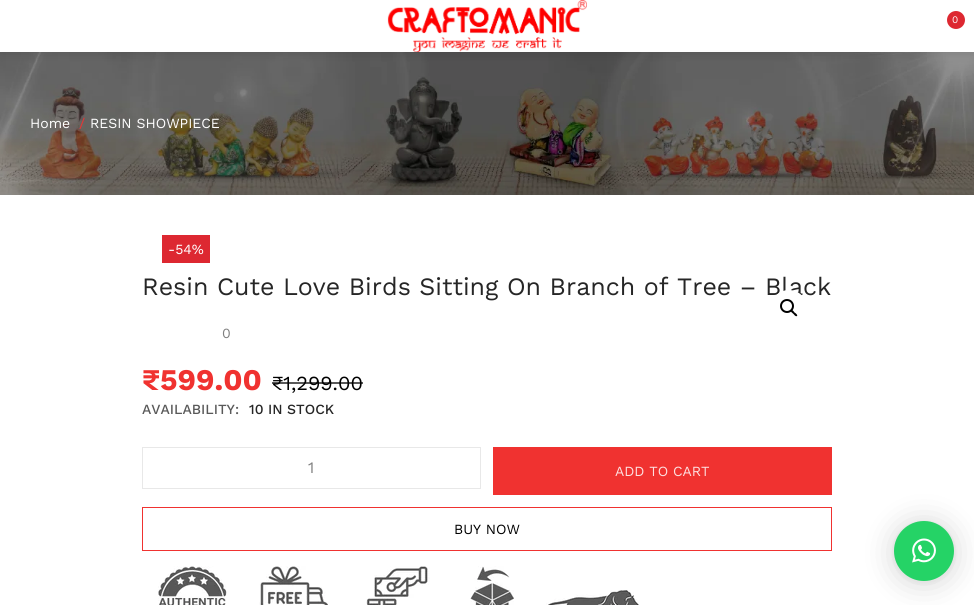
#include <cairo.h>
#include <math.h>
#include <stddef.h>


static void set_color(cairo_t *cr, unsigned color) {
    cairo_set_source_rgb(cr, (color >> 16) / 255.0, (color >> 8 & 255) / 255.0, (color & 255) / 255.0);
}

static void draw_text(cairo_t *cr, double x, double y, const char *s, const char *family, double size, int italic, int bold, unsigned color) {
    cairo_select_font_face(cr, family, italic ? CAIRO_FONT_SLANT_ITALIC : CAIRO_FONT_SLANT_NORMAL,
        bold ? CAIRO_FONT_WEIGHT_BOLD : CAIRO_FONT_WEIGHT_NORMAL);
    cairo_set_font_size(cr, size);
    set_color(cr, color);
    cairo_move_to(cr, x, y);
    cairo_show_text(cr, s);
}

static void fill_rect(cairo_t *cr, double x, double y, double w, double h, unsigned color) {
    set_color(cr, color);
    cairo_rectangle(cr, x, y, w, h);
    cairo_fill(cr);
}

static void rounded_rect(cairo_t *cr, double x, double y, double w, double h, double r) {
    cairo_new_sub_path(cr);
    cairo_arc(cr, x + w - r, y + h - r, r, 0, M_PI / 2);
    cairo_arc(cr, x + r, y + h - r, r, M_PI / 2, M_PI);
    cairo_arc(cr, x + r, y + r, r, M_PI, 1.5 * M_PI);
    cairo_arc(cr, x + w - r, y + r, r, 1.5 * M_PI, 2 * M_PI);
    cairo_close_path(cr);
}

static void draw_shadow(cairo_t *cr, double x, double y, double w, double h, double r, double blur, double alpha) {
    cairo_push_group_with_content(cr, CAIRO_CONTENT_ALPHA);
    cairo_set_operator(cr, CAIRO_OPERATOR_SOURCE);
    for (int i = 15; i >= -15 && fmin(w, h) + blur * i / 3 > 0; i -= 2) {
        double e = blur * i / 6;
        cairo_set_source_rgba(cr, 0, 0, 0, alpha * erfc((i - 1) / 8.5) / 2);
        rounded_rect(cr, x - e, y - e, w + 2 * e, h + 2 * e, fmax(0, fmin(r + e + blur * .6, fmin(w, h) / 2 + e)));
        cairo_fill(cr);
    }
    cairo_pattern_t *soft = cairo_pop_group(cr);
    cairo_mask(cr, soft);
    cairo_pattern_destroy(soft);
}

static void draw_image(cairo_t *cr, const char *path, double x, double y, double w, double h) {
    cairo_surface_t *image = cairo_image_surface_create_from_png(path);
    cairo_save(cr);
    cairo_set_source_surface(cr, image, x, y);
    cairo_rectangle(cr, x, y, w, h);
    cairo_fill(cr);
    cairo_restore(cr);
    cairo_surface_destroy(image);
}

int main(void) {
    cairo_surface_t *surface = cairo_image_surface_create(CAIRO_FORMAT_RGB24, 974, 605);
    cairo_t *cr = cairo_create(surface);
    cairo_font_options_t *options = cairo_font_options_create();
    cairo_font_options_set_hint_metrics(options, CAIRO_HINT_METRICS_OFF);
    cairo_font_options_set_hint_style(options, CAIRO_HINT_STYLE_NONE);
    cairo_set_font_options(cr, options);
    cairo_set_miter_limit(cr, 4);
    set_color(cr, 0xFFFFFF);
    cairo_paint(cr);
    draw_image(cr, "assets/img2.png", 0, 52, 974, 143);
    set_color(cr, 0x000000);
    draw_shadow(cr, 0, 2, 974, 52, 0, 5, 0.1);
    fill_rect(cr, 0, 0, 974, 52, 0xFFFFFF);
    draw_image(cr, "assets/img1.png", 387, 0, 200, 52);
    set_color(cr, 0xDD2831);
    cairo_arc(cr, 956, 20, 9, 0, 2 * M_PI);
    cairo_fill(cr);
    draw_text(cr, 952, 23, "0", "Work Sans", 10, 0, 0, 0xFFFFFF);
    draw_text(cr, 30, 128, "Home", "Work Sans", 14, 0, 0, 0xFFFFFF);
    draw_text(cr, 79, 128, "/", "Work Sans", 14, 0, 0, 0xF03230);
    draw_text(cr, 90, 128, "RESIN SHOWPIECE", "Work Sans", 14, 0, 0, 0xFFFFFF);
    fill_rect(cr, 162, 235, 48, 28, 0xDD2831);
    draw_text(cr, 168, 254, "-54%", "Work Sans", 14, 0, 0, 0xFFFFFF);
    draw_text(cr, 142, 295, "Resin Cute Love Birds Sitting On Branch of Tree – Black", "Work Sans", 25, 0, 0, 0x262626);
    set_color(cr, 0xFFFFFF);
    cairo_new_path(cr);
    cairo_arc(cr, 789, 308, 18, 0, 2 * M_PI);
    cairo_fill(cr);
    cairo_arc(cr, 787, 306, 6, 0, 2 * M_PI);
    set_color(cr, 0x000000);
    cairo_stroke(cr);
    cairo_new_path(cr);
    cairo_move_to(cr, 791, 310.5);
    cairo_curve_to(cr, 792.5, 309, 794, 312, 794.5, 312.5);
    cairo_curve_to(cr, 795.5, 313, 798, 315, 797, 316);
    cairo_curve_to(cr, 795.5, 317, 794, 314.5, 793.5, 314);
    cairo_curve_to(cr, 792.5, 313, 790, 311.5, 791, 310.5);
    cairo_close_path(cr);
    cairo_fill(cr);
    draw_text(cr, 222, 338, "0", "Work Sans", 14, 0, 0, 0x808080);
    draw_text(cr, 142, 390, "₹599.00", "Work Sans", 30, 0, 1, 0xF03230);
    draw_text(cr, 272, 390, "₹1,299.00", "Work Sans", 20, 0, 0, 0x000000);
    cairo_set_source_rgba(cr, 0, 0, 0, 0.65);
    cairo_rectangle(cr, 272, 382, 11, 2);
    cairo_fill(cr);
    cairo_rectangle(cr, 283, 382, 80, 2);
    cairo_fill(cr);
    draw_text(cr, 142, 414, "AVAILABILITY:", "Work Sans Medium", 14, 0, 0, 0x595959);
    draw_text(cr, 249, 414, "10 IN STOCK", "Work Sans Medium", 14, 0, 0, 0x262626);
    cairo_rectangle(cr, 142.5, 447.5, 338, 41);
    set_color(cr, 0xE8E8E8);
    cairo_set_line_width(cr, 1);
    cairo_stroke(cr);
    draw_text(cr, 308, 473, "1", "Work Sans", 16, 0, 0, 0x808080);
    fill_rect(cr, 493, 447, 339, 48, 0xF03230);
    draw_text(cr, 615, 476, "ADD TO CART", "Work Sans", 14, 0, 0, 0xFDE0E0);
    cairo_rectangle(cr, 142.5, 507.5, 689, 43);
    set_color(cr, 0xF03230);
    cairo_stroke(cr);
    draw_text(cr, 454, 534, "BUY NOW", "Work Sans", 14, 0, 0, 0x000000);
    draw_image(cr, "assets/img3.png", 158, 566, 69, 39);
    draw_image(cr, "assets/img4.png", 259, 566, 69, 39);
    draw_image(cr, "assets/img5.png", 366, 566, 64, 39);
    draw_image(cr, "assets/img6.png", 470, 566, 44, 39);
    draw_image(cr, "assets/img7.png", 546, 590, 93, 15);
    set_color(cr, 0x000000);
    draw_shadow(cr, 894, 523, 60, 60, 30, 16, 0.16);
    draw_shadow(cr, 894, 522, 60, 60, 30, 3, 0.06);
    set_color(cr, 0x25D366);
    cairo_arc(cr, 924, 551, 30, 0, 2 * M_PI);
    cairo_fill(cr);
    draw_image(cr, "assets/img8.png", 912, 538, 24, 25);
    cairo_surface_write_to_png(surface, "output.png");
    cairo_font_options_destroy(options);
    cairo_destroy(cr);
    cairo_surface_destroy(surface);
    return 0;
}
